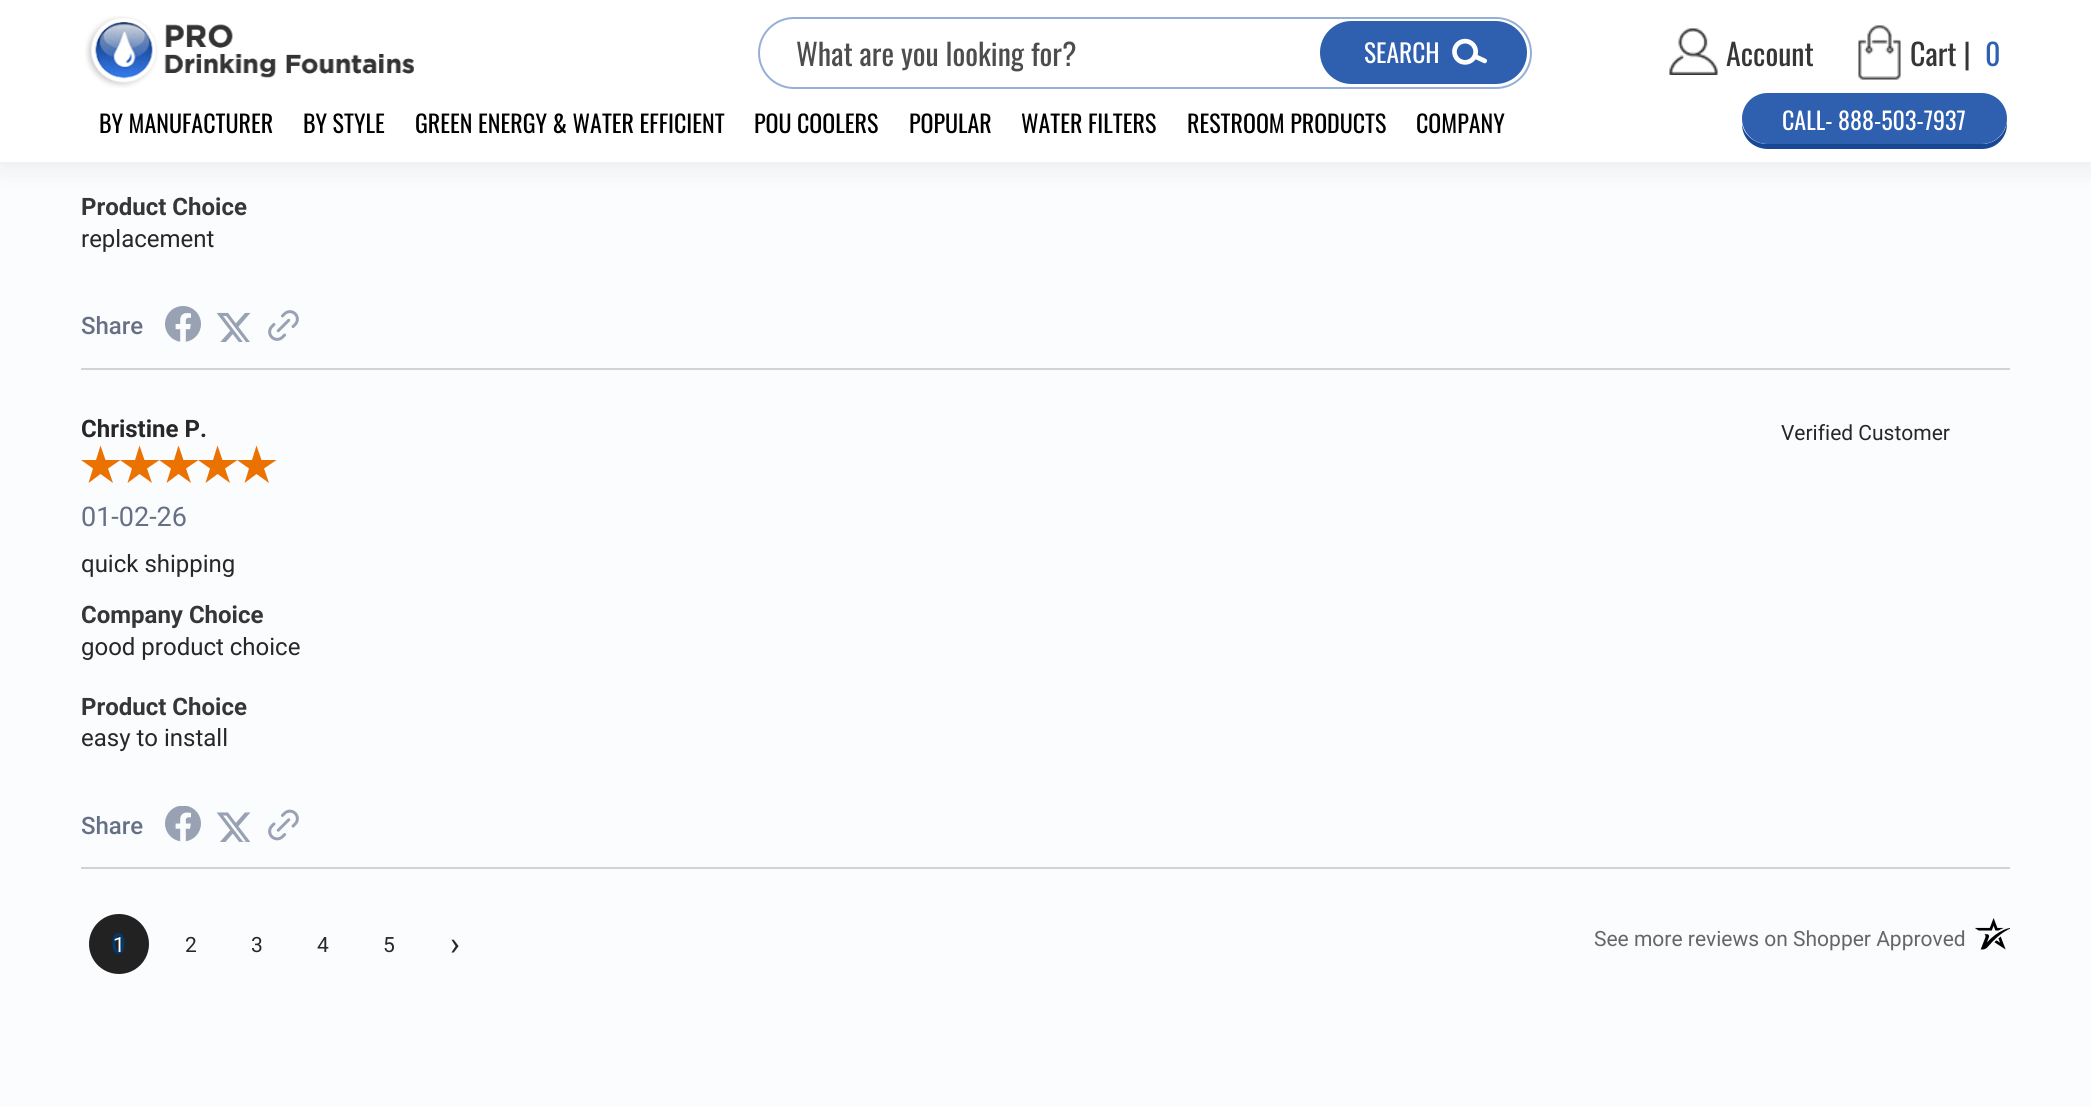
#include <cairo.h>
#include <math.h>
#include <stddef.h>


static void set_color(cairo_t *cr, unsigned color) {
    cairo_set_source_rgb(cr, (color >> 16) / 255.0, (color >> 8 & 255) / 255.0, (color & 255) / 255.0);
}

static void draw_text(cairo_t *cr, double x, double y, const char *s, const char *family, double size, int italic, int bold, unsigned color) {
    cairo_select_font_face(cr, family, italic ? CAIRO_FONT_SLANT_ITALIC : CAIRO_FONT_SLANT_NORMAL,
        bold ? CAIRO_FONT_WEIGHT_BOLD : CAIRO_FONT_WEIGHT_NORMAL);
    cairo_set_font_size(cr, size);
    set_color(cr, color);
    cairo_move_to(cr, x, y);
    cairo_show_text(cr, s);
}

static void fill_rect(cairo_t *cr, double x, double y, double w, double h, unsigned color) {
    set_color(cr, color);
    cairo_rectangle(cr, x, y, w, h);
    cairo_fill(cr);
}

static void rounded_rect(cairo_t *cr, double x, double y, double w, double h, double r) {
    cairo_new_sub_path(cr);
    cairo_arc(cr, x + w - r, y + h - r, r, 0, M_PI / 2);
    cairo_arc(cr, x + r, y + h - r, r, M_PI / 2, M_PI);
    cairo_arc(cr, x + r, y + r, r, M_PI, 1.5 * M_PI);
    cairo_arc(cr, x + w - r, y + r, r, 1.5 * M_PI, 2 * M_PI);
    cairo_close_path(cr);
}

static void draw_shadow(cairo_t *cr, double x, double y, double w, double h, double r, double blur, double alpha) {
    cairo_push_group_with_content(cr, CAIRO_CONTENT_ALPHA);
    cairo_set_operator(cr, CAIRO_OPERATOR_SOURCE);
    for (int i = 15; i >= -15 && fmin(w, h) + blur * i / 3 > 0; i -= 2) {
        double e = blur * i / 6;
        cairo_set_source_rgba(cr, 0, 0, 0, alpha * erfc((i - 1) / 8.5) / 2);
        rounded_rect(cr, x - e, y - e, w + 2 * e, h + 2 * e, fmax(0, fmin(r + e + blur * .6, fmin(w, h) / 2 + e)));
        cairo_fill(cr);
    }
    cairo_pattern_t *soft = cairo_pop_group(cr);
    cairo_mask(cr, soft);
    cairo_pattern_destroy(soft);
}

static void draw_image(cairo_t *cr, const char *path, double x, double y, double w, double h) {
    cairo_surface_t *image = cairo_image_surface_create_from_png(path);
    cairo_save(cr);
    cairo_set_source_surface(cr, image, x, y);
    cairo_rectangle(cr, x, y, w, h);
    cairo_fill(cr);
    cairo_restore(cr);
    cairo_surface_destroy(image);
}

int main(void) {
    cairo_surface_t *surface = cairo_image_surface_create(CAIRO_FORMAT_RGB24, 2091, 1106);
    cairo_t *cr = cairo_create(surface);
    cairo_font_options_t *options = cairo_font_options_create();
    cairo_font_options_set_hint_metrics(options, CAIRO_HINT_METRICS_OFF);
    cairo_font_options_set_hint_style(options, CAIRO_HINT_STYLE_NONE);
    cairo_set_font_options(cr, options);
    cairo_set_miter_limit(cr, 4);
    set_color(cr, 0xFBFCFE);
    cairo_paint(cr);
    set_color(cr, 0x000000);
    draw_shadow(cr, 0, 3, 2091, 162, 0, 15, 0.08);
    fill_rect(cr, 0, 0, 2091, 162, 0xFFFFFF);
    draw_image(cr, "assets/img1.png", 85, 16, 329, 72);
    rounded_rect(cr, 759, 18, 772, 70, 35);
    set_color(cr, 0x96AFD8);
    cairo_stroke(cr);
    draw_text(cr, 796, 66, "What are you looking for?", "Oswald", 30, 0, 0, 0x4D4D4D);
    set_color(cr, 0x2F5FAF);
    rounded_rect(cr, 1320, 21, 207, 63, 31.5);
    cairo_fill(cr);
    draw_text(cr, 1364, 63, "SEARCH", "Oswald", 25.5, 0, 0, 0xFFFFFF);
    draw_image(cr, "assets/img2.png", 1452, 38, 35, 27);
    draw_image(cr, "assets/img3.png", 1669, 28, 49, 47);
    draw_text(cr, 1726, 66, "Account", "Oswald", 30, 0, 0, 0x363636);
    draw_image(cr, "assets/img4.png", 1858, 25, 43, 55);
    draw_text(cr, 1910, 66, "Cart |", "Oswald", 30, 0, 0, 0x363636);
    draw_text(cr, 1985, 66, "0", "Oswald", 30, 0, 0, 0x2F5FAF);
    draw_text(cr, 99, 133, "BY MANUFACTURER", "Oswald", 24, 0, 0, 0x000000);
    draw_text(cr, 303, 133, "BY STYLE", "Oswald", 24, 0, 0, 0x000000);
    draw_text(cr, 415, 133, "GREEN ENERGY & WATER EFFICIENT", "Oswald", 24, 0, 0, 0x000000);
    draw_text(cr, 754, 133, "POU COOLERS", "Oswald", 24, 0, 0, 0x000000);
    draw_text(cr, 909, 133, "POPULAR", "Oswald", 24, 0, 0, 0x000000);
    draw_text(cr, 1021, 133, "WATER FILTERS", "Oswald", 24, 0, 0, 0x000000);
    draw_text(cr, 1187, 133, "RESTROOM PRODUCTS", "Oswald", 24, 0, 0, 0x000000);
    draw_text(cr, 1416, 133, "COMPANY", "Oswald", 24, 0, 0, 0x000000);
    set_color(cr, 0x184795);
    cairo_new_path(cr);
    cairo_move_to(cr, 1742, 124);
    cairo_curve_to(cr, 1742, 138, 1753, 149, 1768, 149);
    cairo_line_to(cr, 1982, 149);
    cairo_curve_to(cr, 1996, 149, 2007, 138, 2007, 124);
    cairo_line_to(cr, 2007, 121);
    cairo_curve_to(cr, 2006, 134, 1995, 144, 1982, 144);
    cairo_line_to(cr, 1767, 144);
    cairo_curve_to(cr, 1755, 144, 1744, 135, 1742, 124);
    cairo_close_path(cr);
    cairo_fill(cr);
    set_color(cr, 0x2F5FAF);
    rounded_rect(cr, 1742, 93, 265, 51, 25.5);
    cairo_fill(cr);
    draw_text(cr, 1782, 130, "CALL- 888-503-7937", "Oswald", 24, 0, 0, 0xFFFFFF);
    draw_text(cr, 81, 215, "Product Choice", "Roboto", 24, 0, 1, 0x363636);
    draw_text(cr, 81, 247, "replacement", "Roboto", 24, 0, 0, 0x272727);
    draw_text(cr, 81, 334, "Share", "Roboto Medium", 24, 0, 0, 0x667085);
    draw_image(cr, "assets/img5.png", 165, 306, 36, 36);
    draw_image(cr, "assets/img6.png", 216, 312, 35, 30);
    draw_image(cr, "assets/img7.png", 268, 310, 31, 31);
    fill_rect(cr, 81, 368, 1929, 2, 0xD2D2D9);
    draw_text(cr, 81, 437, "Christine P.", "Roboto", 24, 0, 1, 0x272727);
    draw_text(cr, 1781, 440, "Verified Customer", "Roboto", 21, 0, 0, 0x272727);
    set_color(cr, 0xEB7100);
    cairo_new_path(cr);
    cairo_move_to(cr, 100.5, 445.5);
    cairo_line_to(cr, 105.5, 460);
    cairo_line_to(cr, 120.5, 460);
    cairo_line_to(cr, 108, 468.5);
    cairo_line_to(cr, 113, 483);
    cairo_line_to(cr, 100.5, 474);
    cairo_line_to(cr, 88.5, 483);
    cairo_line_to(cr, 93, 468.5);
    cairo_line_to(cr, 81, 460);
    cairo_line_to(cr, 96, 460);
    cairo_close_path(cr);
    cairo_fill(cr);
    cairo_new_path(cr);
    cairo_move_to(cr, 139.5, 445.5);
    cairo_line_to(cr, 144.5, 460);
    cairo_line_to(cr, 159.5, 460);
    cairo_line_to(cr, 147, 468.5);
    cairo_line_to(cr, 152, 483);
    cairo_line_to(cr, 139.5, 474);
    cairo_line_to(cr, 127.5, 483);
    cairo_line_to(cr, 132, 468.5);
    cairo_line_to(cr, 120, 460);
    cairo_line_to(cr, 135, 460);
    cairo_close_path(cr);
    cairo_fill(cr);
    cairo_new_path(cr);
    cairo_move_to(cr, 178.5, 445.5);
    cairo_line_to(cr, 183.5, 460);
    cairo_line_to(cr, 198.5, 460);
    cairo_line_to(cr, 186, 468.5);
    cairo_line_to(cr, 191, 483);
    cairo_line_to(cr, 178.5, 474);
    cairo_line_to(cr, 166.5, 483);
    cairo_line_to(cr, 171, 468.5);
    cairo_line_to(cr, 159, 460);
    cairo_line_to(cr, 174, 460);
    cairo_close_path(cr);
    cairo_fill(cr);
    cairo_new_path(cr);
    cairo_move_to(cr, 217.5, 445.5);
    cairo_line_to(cr, 222.5, 460);
    cairo_line_to(cr, 237.5, 460);
    cairo_line_to(cr, 225, 468.5);
    cairo_line_to(cr, 230, 483);
    cairo_line_to(cr, 217.5, 474);
    cairo_line_to(cr, 205.5, 483);
    cairo_line_to(cr, 210, 468.5);
    cairo_line_to(cr, 198, 460);
    cairo_line_to(cr, 213, 460);
    cairo_close_path(cr);
    cairo_fill(cr);
    cairo_new_path(cr);
    cairo_move_to(cr, 256.5, 445.5);
    cairo_line_to(cr, 261.5, 460);
    cairo_line_to(cr, 276.5, 460);
    cairo_line_to(cr, 264, 468.5);
    cairo_line_to(cr, 269, 483);
    cairo_line_to(cr, 256.5, 474);
    cairo_line_to(cr, 244.5, 483);
    cairo_line_to(cr, 249, 468.5);
    cairo_line_to(cr, 237, 460);
    cairo_line_to(cr, 252, 460);
    cairo_close_path(cr);
    cairo_fill(cr);
    draw_text(cr, 81, 526, "01-02-26", "Roboto", 27, 0, 0, 0x667085);
    draw_text(cr, 81, 572, "quick shipping", "Roboto", 24, 0, 0, 0x272727);
    draw_text(cr, 81, 623, "Company Choice", "Roboto", 24, 0, 1, 0x363636);
    draw_text(cr, 81, 655, "good product choice", "Roboto", 24, 0, 0, 0x272727);
    draw_text(cr, 81, 715, "Product Choice", "Roboto", 24, 0, 1, 0x363636);
    draw_text(cr, 81, 746, "easy to install", "Roboto", 24, 0, 0, 0x272727);
    draw_text(cr, 81, 834, "Share", "Roboto Medium", 24, 0, 0, 0x667085);
    draw_image(cr, "assets/img8.png", 165, 806, 36, 36);
    draw_image(cr, "assets/img9.png", 216, 812, 35, 30);
    draw_image(cr, "assets/img10.png", 268, 809, 31, 32);
    fill_rect(cr, 81, 867, 1929, 2, 0xD2D2D9);
    set_color(cr, 0x222222);
    cairo_arc(cr, 119, 944, 30, 0, 2 * M_PI);
    cairo_fill(cr);
    cairo_new_path(cr);
    cairo_move_to(cr, 118.5, 934.5);
    cairo_curve_to(cr, 124.5, 934.5, 124.5, 952.5, 118.5, 952.5);
    cairo_curve_to(cr, 112.5, 952.5, 112.5, 934.5, 118.5, 934.5);
    cairo_close_path(cr);
    set_color(cr, 0x003A70);
    cairo_set_line_width(cr, 3);
    cairo_stroke(cr);
    draw_text(cr, 113, 952, "1", "Roboto", 21, 0, 0, 0xFFFFFF);
    draw_text(cr, 185, 952, "2", "Roboto", 21, 0, 0, 0x272727);
    draw_text(cr, 251, 952, "3", "Roboto", 21, 0, 0, 0x272727);
    draw_text(cr, 317, 952, "4", "Roboto", 21, 0, 0, 0x272727);
    draw_text(cr, 383, 952, "5", "Roboto", 21, 0, 0, 0x272727);
    draw_text(cr, 450, 955, "›", "Roboto", 33, 0, 0, 0x272727);
    draw_text(cr, 1594, 946, "See more reviews on Shopper Approved", "Roboto", 21, 0, 0, 0x666666);
    draw_image(cr, "assets/img11.png", 1975, 918, 35, 32);
    cairo_surface_write_to_png(surface, "output.png");
    cairo_font_options_destroy(options);
    cairo_destroy(cr);
    cairo_surface_destroy(surface);
    return 0;
}
